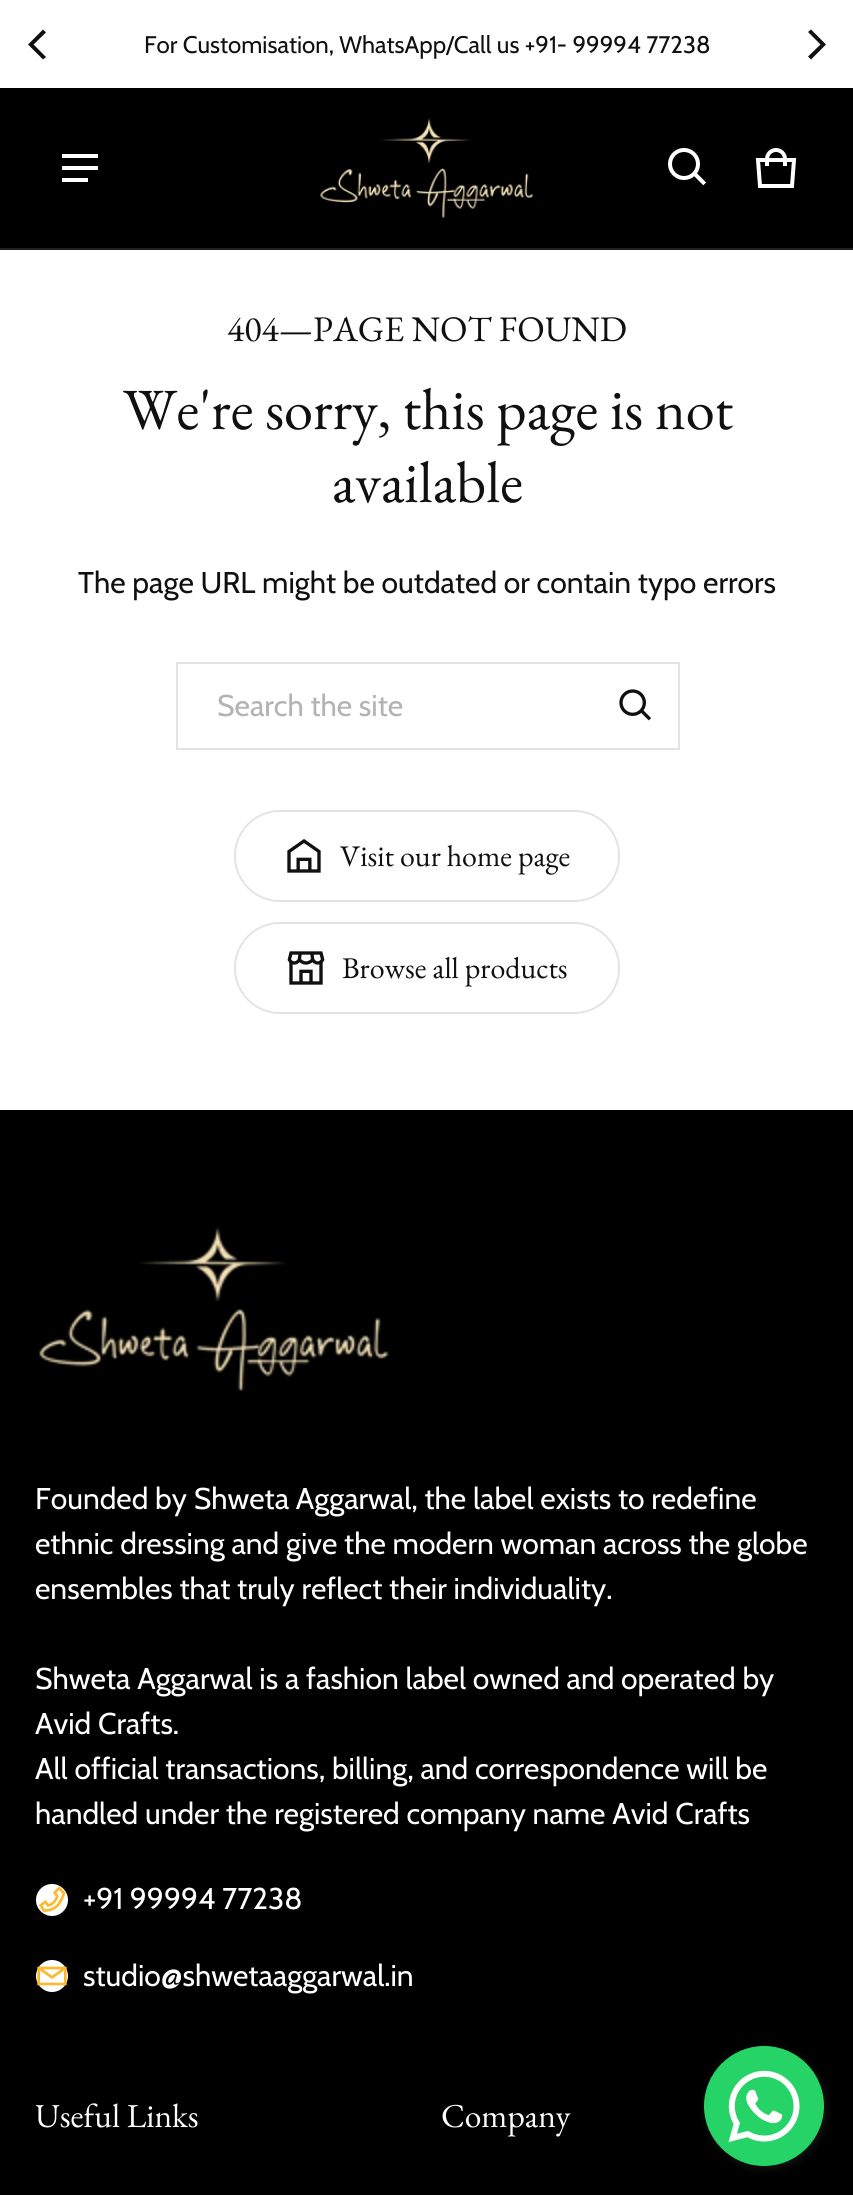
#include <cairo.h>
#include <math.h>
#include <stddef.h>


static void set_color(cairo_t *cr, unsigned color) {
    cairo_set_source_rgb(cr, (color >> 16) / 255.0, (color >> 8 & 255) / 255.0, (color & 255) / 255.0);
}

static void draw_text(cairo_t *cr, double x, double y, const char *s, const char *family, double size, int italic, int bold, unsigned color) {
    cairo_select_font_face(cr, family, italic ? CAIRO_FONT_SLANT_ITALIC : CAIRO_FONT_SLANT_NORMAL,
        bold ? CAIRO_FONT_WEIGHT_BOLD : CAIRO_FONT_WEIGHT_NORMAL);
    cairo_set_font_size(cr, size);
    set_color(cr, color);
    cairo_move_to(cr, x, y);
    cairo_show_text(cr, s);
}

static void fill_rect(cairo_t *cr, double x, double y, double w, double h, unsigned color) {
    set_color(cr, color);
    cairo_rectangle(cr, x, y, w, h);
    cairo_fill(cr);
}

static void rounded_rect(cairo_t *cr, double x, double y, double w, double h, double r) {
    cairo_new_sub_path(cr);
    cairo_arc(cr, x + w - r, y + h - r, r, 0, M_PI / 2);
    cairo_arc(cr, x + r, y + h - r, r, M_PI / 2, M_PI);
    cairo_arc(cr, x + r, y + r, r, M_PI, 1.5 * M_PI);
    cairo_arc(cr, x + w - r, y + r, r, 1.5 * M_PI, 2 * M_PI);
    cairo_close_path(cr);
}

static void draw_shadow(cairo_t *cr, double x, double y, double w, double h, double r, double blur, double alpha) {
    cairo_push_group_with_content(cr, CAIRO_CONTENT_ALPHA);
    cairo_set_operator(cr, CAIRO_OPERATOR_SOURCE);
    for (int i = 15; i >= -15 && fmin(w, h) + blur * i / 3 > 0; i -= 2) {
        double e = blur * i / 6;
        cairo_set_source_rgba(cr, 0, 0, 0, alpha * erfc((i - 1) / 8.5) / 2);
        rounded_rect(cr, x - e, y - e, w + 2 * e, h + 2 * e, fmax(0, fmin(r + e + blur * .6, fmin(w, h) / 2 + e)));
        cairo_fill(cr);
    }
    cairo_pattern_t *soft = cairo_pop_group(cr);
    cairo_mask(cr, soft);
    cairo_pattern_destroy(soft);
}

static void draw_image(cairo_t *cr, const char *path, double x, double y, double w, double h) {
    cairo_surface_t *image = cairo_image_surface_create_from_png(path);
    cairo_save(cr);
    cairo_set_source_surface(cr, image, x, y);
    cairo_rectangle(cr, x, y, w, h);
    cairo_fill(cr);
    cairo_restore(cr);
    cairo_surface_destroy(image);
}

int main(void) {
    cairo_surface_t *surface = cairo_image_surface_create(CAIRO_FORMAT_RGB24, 853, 2195);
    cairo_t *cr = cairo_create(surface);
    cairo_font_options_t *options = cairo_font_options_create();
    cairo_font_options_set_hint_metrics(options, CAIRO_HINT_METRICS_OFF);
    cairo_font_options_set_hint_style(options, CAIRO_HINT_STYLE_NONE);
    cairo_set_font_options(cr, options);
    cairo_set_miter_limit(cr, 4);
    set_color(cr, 0xFFFFFF);
    cairo_paint(cr);
    set_color(cr, 0x101010);
    cairo_set_fill_rule(cr, CAIRO_FILL_RULE_EVEN_ODD);
    cairo_new_path(cr);
    cairo_move_to(cr, 33.5, 44.5);
    cairo_line_to(cr, 46, 32.5);
    cairo_line_to(cr, 43, 29.5);
    cairo_line_to(cr, 28, 44.5);
    cairo_line_to(cr, 43, 59.5);
    cairo_line_to(cr, 46, 57);
    cairo_close_path(cr);
    cairo_fill(cr);
    draw_text(cr, 144, 53, "For Customisation, WhatsApp/Call us +91- 99994 77238", "Cabin", 24, 0, 0, 0x101010);
    cairo_new_path(cr);
    cairo_move_to(cr, 820.5, 44.5);
    cairo_line_to(cr, 808, 32);
    cairo_line_to(cr, 811, 29.5);
    cairo_line_to(cr, 826, 44.5);
    cairo_line_to(cr, 811, 59.5);
    cairo_line_to(cr, 808, 56.5);
    cairo_close_path(cr);
    cairo_fill(cr);
    fill_rect(cr, 0, 88, 853, 160, 0x000000);
    fill_rect(cr, 0, 248, 853, 2, 0x1F1F1F);
    fill_rect(cr, 62, 154, 36, 4, 0xFFFFFF);
    fill_rect(cr, 62, 166, 36, 4, 0xFFFFFF);
    fill_rect(cr, 62, 178, 26, 4, 0xFFFFFF);
    draw_image(cr, "assets/img1.png", 320, 118, 214, 101);
    draw_image(cr, "assets/img2.png", 668, 148, 38, 38);
    draw_image(cr, "assets/img3.png", 755, 148, 42, 40);
    draw_text(cr, 227, 341, "404—PAGE NOT FOUND", "EB Garamond", 36, 0, 0, 0x101010);
    draw_text(cr, 123, 429, "We're sorry, this page is not", "EB Garamond", 58.5, 0, 0, 0x101010);
    draw_text(cr, 332, 502, "available", "EB Garamond", 58.5, 0, 0, 0x101010);
    draw_text(cr, 78, 593, "The page URL might be outdated or contain typo errors", "Cabin", 30, 0, 0, 0x101010);
    cairo_rectangle(cr, 177, 663, 502, 86);
    set_color(cr, 0xE2E2E2);
    cairo_stroke(cr);
    draw_text(cr, 217, 716, "Search the site", "Cabin", 30, 0, 0, 0xB3B3B3);
    draw_image(cr, "assets/img4.png", 619, 689, 32, 32);
    rounded_rect(cr, 235, 811, 384, 90, 45);
    set_color(cr, 0xE2E2E2);
    cairo_stroke(cr);
    set_color(cr, 0xFFFFFF);
    rounded_rect(cr, 236, 812, 382, 88, 44);
    cairo_fill(cr);
    draw_image(cr, "assets/img5.png", 287, 839, 34, 34);
    draw_text(cr, 340, 866, "Visit our home page", "EB Garamond", 30, 0, 0, 0x101010);
    rounded_rect(cr, 235, 923, 384, 90, 45);
    set_color(cr, 0xE2E2E2);
    cairo_stroke(cr);
    set_color(cr, 0xFFFFFF);
    rounded_rect(cr, 236, 924, 382, 88, 44);
    cairo_fill(cr);
    draw_image(cr, "assets/img6.png", 287, 951, 38, 34);
    draw_text(cr, 342, 978, "Browse all products", "EB Garamond", 30, 0, 0, 0x101010);
    fill_rect(cr, 0, 1110, 853, 1085, 0x000000);
    draw_image(cr, "assets/img7.png", 39, 1227, 350, 165);
    draw_text(cr, 35, 1509, "Founded by Shweta Aggarwal, the label exists to redefine", "Cabin", 30, 0, 0, 0xFFFFFF);
    draw_text(cr, 35, 1554, "ethnic dressing and give the modern woman across the globe", "Cabin", 30, 0, 0, 0xFFFFFF);
    draw_text(cr, 35, 1599, "ensembles that truly reflect their individuality.", "Cabin", 30, 0, 0, 0xFFFFFF);
    draw_text(cr, 35, 1689, "Shweta Aggarwal is a fashion label owned and operated by", "Cabin", 30, 0, 0, 0xFFFFFF);
    draw_text(cr, 35, 1734, "Avid Crafts.", "Cabin", 30, 0, 0, 0xFFFFFF);
    draw_text(cr, 35, 1779, "All official transactions, billing, and correspondence will be", "Cabin", 30, 0, 0, 0xFFFFFF);
    draw_text(cr, 35, 1824, "handled under the registered company name Avid Crafts", "Cabin", 30, 0, 0, 0xFFFFFF);
    cairo_new_path(cr);
    cairo_arc(cr, 52, 1900, 16, 0, 2 * M_PI);
    cairo_fill(cr);
    draw_image(cr, "assets/img8.png", 39, 1886, 27, 26);
    draw_text(cr, 83, 1909, "+91 99994 77238", "Cabin", 30, 0, 0, 0xFFFFFF);
    cairo_new_path(cr);
    cairo_arc(cr, 52, 1976, 16, 0, 2 * M_PI);
    cairo_fill(cr);
    draw_image(cr, "assets/img9.png", 37, 1966, 30, 20);
    draw_text(cr, 83, 1986, "studio@shwetaaggarwal.in", "Cabin", 30, 0, 0, 0xFFFFFF);
    draw_text(cr, 35, 2127, "Useful Links", "EB Garamond", 33.5, 0, 0, 0xFFFFFF);
    draw_text(cr, 441, 2127, "Company", "EB Garamond", 33.5, 0, 0, 0xFFFFFF);
    set_color(cr, 0x3C3C3C);
    draw_shadow(cr, 706, 2048, 120, 120, 60, 4, 0.4);
    draw_image(cr, "assets/img10.png", 704, 2046, 120, 120);
    cairo_surface_write_to_png(surface, "output.png");
    cairo_font_options_destroy(options);
    cairo_destroy(cr);
    cairo_surface_destroy(surface);
    return 0;
}
